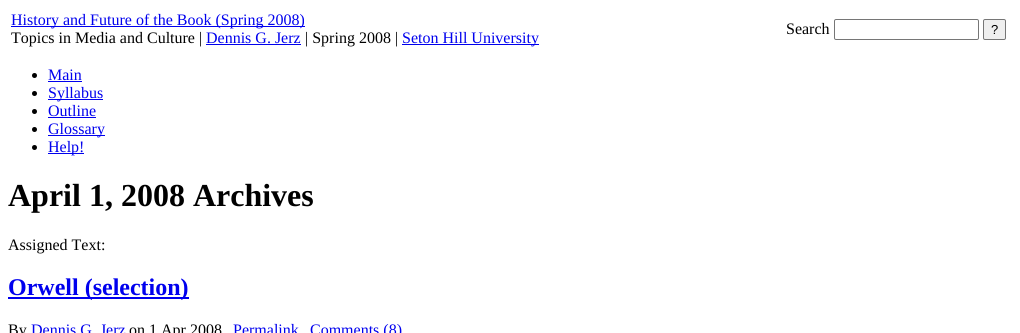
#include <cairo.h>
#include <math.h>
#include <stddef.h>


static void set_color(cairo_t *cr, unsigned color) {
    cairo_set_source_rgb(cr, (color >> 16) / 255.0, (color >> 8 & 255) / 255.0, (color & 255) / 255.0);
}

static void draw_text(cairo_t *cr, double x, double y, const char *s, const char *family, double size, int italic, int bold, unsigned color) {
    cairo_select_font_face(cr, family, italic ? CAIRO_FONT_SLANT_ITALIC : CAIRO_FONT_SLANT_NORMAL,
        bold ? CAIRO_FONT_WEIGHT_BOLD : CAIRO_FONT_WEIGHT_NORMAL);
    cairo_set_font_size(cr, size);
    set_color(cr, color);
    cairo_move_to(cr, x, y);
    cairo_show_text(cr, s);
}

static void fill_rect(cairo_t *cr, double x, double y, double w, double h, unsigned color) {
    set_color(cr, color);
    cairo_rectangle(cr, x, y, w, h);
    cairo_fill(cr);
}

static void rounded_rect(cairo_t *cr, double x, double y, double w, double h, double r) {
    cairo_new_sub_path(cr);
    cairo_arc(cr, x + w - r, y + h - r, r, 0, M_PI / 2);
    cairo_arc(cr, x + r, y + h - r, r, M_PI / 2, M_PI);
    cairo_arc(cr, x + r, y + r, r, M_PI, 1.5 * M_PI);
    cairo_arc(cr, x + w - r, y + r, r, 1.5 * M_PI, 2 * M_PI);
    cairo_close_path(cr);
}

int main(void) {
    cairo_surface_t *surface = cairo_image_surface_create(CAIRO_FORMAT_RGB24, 1020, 333);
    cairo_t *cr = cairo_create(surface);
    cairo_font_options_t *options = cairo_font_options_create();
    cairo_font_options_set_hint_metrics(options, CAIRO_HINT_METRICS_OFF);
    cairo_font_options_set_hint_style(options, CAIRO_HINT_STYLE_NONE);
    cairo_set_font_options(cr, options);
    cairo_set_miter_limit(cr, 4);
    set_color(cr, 0xFFFFFF);
    cairo_paint(cr);
    fill_rect(cr, 11, 26, 294, 1, 0x0000EE);
    draw_text(cr, 11, 25, "History and Future of the Book (Spring 2008)", "Liberation Serif", 16, 0, 0, 0x0000EE);
    draw_text(cr, 11, 43, "Topics in Media and Culture |", "Liberation Serif", 16, 0, 0, 0x000000);
    draw_text(cr, 206, 43, "Dennis G. Jerz", "Liberation Serif", 16, 0, 0, 0x0000EE);
    fill_rect(cr, 206, 44, 95, 1, 0x0000EE);
    draw_text(cr, 305, 43, "| Spring 2008 |", "Liberation Serif", 16, 0, 0, 0x000000);
    fill_rect(cr, 402, 44, 137, 1, 0x0000EE);
    draw_text(cr, 402, 43, "Seton Hill University", "Liberation Serif", 16, 0, 0, 0x0000EE);
    draw_text(cr, 786, 34, "Search", "Liberation Serif", 16, 0, 0, 0x000000);
    rounded_rect(cr, 834.5, 19.5, 144, 20, 1.5);
    set_color(cr, 0x767676);
    cairo_set_line_width(cr, 1);
    cairo_stroke(cr);
    set_color(cr, 0xEFEFEF);
    rounded_rect(cr, 983.5, 19.5, 22, 20, 1.5);
    cairo_fill_preserve(cr);
    set_color(cr, 0x767676);
    cairo_stroke(cr);
    draw_text(cr, 991, 34, "?", "Liberation Sans", 13, 0, 0, 0x000000);
    cairo_new_path(cr);
    cairo_arc(cr, 34.5, 75.5, 2.5, 0, 2 * M_PI);
    cairo_fill(cr);
    draw_text(cr, 48, 80, "Main", "Liberation Serif", 16, 0, 0, 0x0000EE);
    fill_rect(cr, 48, 81, 34, 1, 0x0000EE);
    set_color(cr, 0x000000);
    cairo_new_path(cr);
    cairo_arc(cr, 34.5, 93.5, 2.5, 0, 2 * M_PI);
    cairo_fill(cr);
    fill_rect(cr, 48, 99, 55, 1, 0x0000EE);
    draw_text(cr, 48, 98, "Syllabus", "Liberation Serif", 16, 0, 0, 0x0000EE);
    set_color(cr, 0x000000);
    cairo_new_path(cr);
    cairo_arc(cr, 34.5, 111.5, 2.5, 0, 2 * M_PI);
    cairo_fill(cr);
    draw_text(cr, 48, 116, "Outline", "Liberation Serif", 16, 0, 0, 0x0000EE);
    fill_rect(cr, 48, 117, 48, 1, 0x0000EE);
    set_color(cr, 0x000000);
    cairo_new_path(cr);
    cairo_arc(cr, 34.5, 129.5, 2.5, 0, 2 * M_PI);
    cairo_fill(cr);
    fill_rect(cr, 48, 135, 57, 1, 0x0000EE);
    draw_text(cr, 48, 134, "Glossary", "Liberation Serif", 16, 0, 0, 0x0000EE);
    set_color(cr, 0x000000);
    cairo_new_path(cr);
    cairo_arc(cr, 34.5, 147.5, 2.5, 0, 2 * M_PI);
    cairo_fill(cr);
    fill_rect(cr, 48, 153, 36, 1, 0x0000EE);
    draw_text(cr, 48, 152, "Help!", "Liberation Serif", 16, 0, 0, 0x0000EE);
    draw_text(cr, 8, 206, "April 1, 2008 Archives", "Liberation Serif", 32, 0, 1, 0x000000);
    draw_text(cr, 8, 250, "Assigned Text:", "Liberation Serif", 16, 0, 0, 0x000000);
    fill_rect(cr, 8, 297, 181, 2, 0x0000EE);
    draw_text(cr, 8, 295, "Orwell (selection)", "Liberation Serif", 24, 0, 1, 0x0000EE);
    draw_text(cr, 8, 335, "By", "Liberation Serif", 16, 0, 0, 0x000000);
    draw_text(cr, 31, 335, "Dennis G. Jerz", "Liberation Serif", 16, 0, 0, 0x0000EE);
    draw_text(cr, 129, 335, "on 1 Apr 2008", "Liberation Serif", 16, 0, 0, 0x000000);
    draw_text(cr, 233, 335, "Permalink", "Liberation Serif", 16, 0, 0, 0x0000EE);
    draw_text(cr, 310, 335, "Comments (8)", "Liberation Serif", 16, 0, 0, 0x0000EE);
    cairo_surface_write_to_png(surface, "output.png");
    cairo_font_options_destroy(options);
    cairo_destroy(cr);
    cairo_surface_destroy(surface);
    return 0;
}
